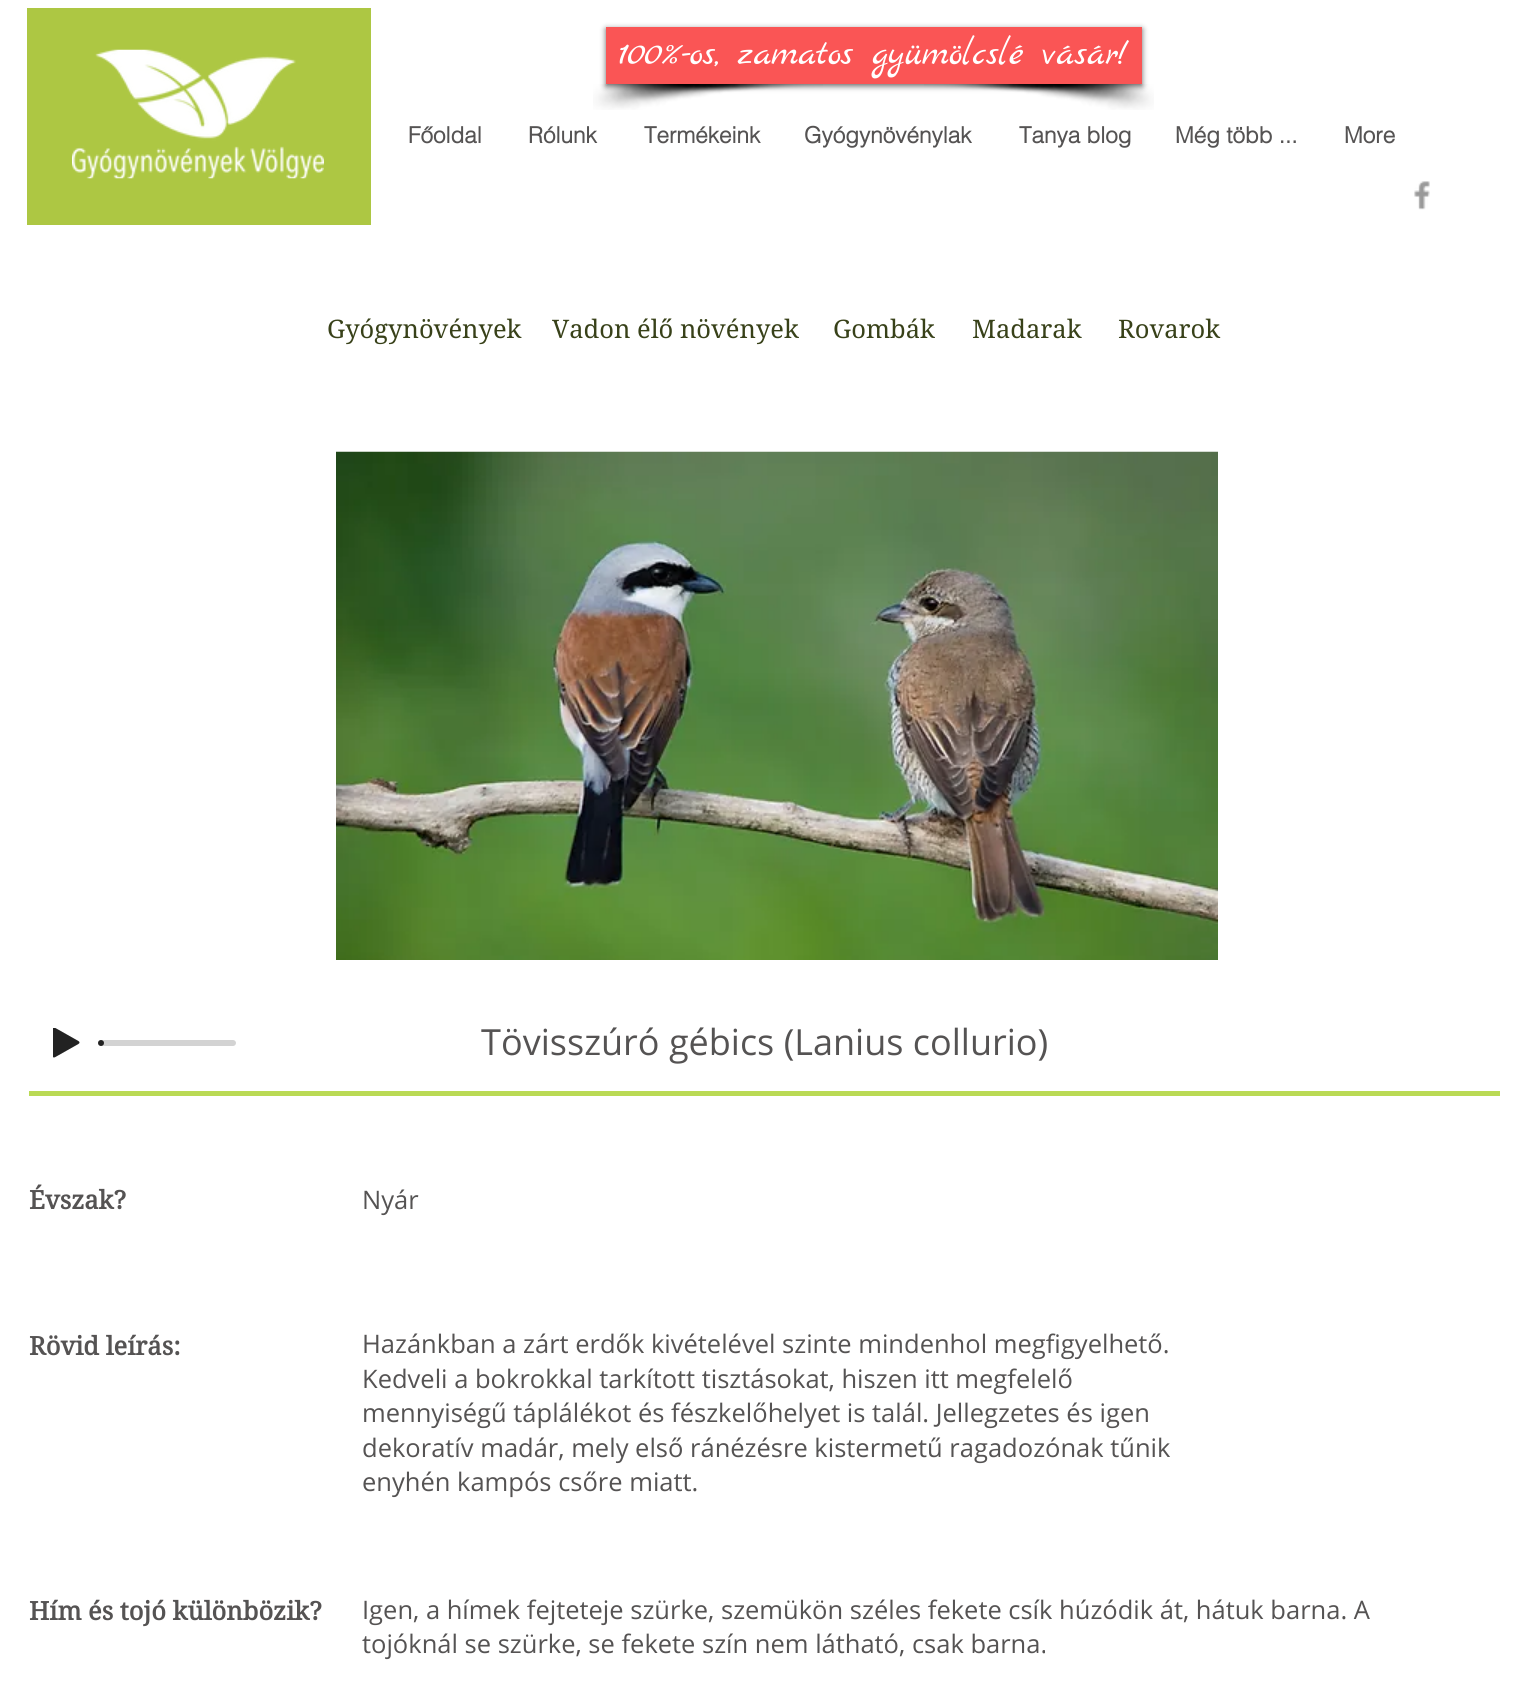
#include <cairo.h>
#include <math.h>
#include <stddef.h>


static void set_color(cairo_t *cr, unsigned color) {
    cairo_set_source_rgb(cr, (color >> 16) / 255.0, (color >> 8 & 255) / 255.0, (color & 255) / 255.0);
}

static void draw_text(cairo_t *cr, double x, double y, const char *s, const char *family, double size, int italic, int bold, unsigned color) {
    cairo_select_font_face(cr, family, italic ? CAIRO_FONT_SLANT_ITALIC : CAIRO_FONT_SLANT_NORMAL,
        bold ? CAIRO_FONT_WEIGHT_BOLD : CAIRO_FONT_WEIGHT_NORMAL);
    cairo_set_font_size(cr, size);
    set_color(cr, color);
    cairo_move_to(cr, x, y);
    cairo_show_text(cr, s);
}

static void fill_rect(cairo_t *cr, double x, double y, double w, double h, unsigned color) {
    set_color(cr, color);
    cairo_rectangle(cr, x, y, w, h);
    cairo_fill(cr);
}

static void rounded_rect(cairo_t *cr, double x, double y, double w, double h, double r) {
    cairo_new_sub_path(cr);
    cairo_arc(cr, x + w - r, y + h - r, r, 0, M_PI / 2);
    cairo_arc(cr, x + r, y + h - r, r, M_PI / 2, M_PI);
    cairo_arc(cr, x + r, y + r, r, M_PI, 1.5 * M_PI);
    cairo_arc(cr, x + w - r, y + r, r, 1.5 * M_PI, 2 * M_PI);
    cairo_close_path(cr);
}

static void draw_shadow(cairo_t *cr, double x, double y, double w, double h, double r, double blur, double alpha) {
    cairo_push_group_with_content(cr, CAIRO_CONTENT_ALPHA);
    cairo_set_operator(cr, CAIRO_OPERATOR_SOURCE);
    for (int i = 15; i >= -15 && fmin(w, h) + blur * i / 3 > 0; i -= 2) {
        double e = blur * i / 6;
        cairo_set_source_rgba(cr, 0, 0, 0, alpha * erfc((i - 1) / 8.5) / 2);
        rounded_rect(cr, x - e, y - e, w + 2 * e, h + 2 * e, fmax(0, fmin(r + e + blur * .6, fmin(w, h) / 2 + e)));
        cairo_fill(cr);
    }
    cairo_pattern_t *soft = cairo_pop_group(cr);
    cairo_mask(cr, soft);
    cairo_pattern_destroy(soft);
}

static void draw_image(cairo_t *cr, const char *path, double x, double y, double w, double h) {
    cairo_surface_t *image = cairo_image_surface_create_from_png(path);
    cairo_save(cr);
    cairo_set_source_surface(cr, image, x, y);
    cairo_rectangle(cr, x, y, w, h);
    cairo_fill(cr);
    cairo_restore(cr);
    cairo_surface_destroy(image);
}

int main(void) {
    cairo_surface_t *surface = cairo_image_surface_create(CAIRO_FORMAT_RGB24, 1524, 1707);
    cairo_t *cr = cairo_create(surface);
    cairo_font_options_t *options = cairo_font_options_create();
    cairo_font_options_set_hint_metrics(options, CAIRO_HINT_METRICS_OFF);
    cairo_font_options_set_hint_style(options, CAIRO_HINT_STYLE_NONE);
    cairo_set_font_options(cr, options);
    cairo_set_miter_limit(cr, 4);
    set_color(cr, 0xFFFFFF);
    cairo_paint(cr);
    fill_rect(cr, 27, 8, 344, 217, 0xADC743);
    draw_image(cr, "assets/img1.png", 72, 49, 252, 130);
    draw_image(cr, "assets/img2.png", 593, 84, 230, 26);
    draw_image(cr, "assets/img3.png", 924, 84, 230, 26);
    set_color(cr, 0x000000);
    draw_shadow(cr, 606, 29, 536, 57, 0, 3, 0.6);
    fill_rect(cr, 606, 27, 536, 57, 0xFA5555);
    draw_text(cr, 620, 64, "100%-os, zamatos gyümölcslé vásár!", "Marck Script", 37.5, 0, 0, 0xFFFFFF);
    draw_text(cr, 408, 143, "Főoldal", "helvetica", 22.5, 0, 1, 0x555353);
    draw_text(cr, 528, 143, "Rólunk", "helvetica", 22.5, 0, 1, 0x555353);
    draw_text(cr, 644, 143, "Termékeink", "helvetica", 22.5, 0, 1, 0x555353);
    draw_text(cr, 804, 143, "Gyógynövénylak", "helvetica", 22.5, 0, 1, 0x555353);
    draw_text(cr, 1019, 143, "Tanya blog", "helvetica", 22.5, 0, 1, 0x555353);
    draw_text(cr, 1175, 143, "Még több ...", "helvetica", 22.5, 0, 1, 0x555353);
    draw_text(cr, 1344, 143, "More", "helvetica", 22.5, 0, 1, 0x555353);
    draw_image(cr, "assets/img4.png", 1414, 181, 16, 29);
    draw_text(cr, 327, 338, "Gyógynövények", "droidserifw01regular", 25.5, 0, 0, 0x384119);
    draw_text(cr, 552, 338, "Vadon élő növények", "droidserifw01regular", 25.5, 0, 0, 0x384119);
    draw_text(cr, 833, 338, "Gombák", "droidserifw01regular", 25.5, 0, 0, 0x384119);
    draw_text(cr, 972, 338, "Madarak", "droidserifw01regular", 25.5, 0, 0, 0x384119);
    draw_text(cr, 1118, 338, "Rovarok", "droidserifw01regular", 25.5, 0, 0, 0x384119);
    draw_image(cr, "assets/img5.png", 336, 451, 882, 509);
    draw_image(cr, "assets/img6.png", 53, 1028, 27, 30);
    set_color(cr, 0xD3D3D3);
    rounded_rect(cr, 101, 1040, 135, 6, 3);
    cairo_fill(cr);
    set_color(cr, 0x222222);
    cairo_arc(cr, 101, 1043, 3, 0, 2 * M_PI);
    cairo_fill(cr);
    draw_text(cr, 481, 1055, "Tövisszúró gébics (Lanius collurio)", "Open Sans", 36, 0, 0, 0x555353);
    fill_rect(cr, 29, 1091, 1471, 5, 0xBADA55);
    draw_text(cr, 29, 1209, "Évszak?", "droidserifw01regular", 25.5, 0, 1, 0x555353);
    draw_text(cr, 362, 1209, "Nyár", "Open Sans", 25.5, 0, 0, 0x555353);
    draw_text(cr, 29, 1355, "Rövid leírás:", "droidserifw01regular", 25.5, 0, 1, 0x555353);
    draw_text(cr, 362, 1353, "Hazánkban a zárt erdők kivételével szinte mindenhol megfigyelhető.", "Open Sans", 25.5, 0, 0, 0x555353);
    draw_text(cr, 362, 1388, "Kedveli a bokrokkal tarkított tisztásokat, hiszen itt megfelelő", "Open Sans", 25.5, 0, 0, 0x555353);
    draw_text(cr, 362, 1422, "mennyiségű táplálékot és fészkelőhelyet is talál. Jellegzetes és igen", "Open Sans", 25.5, 0, 0, 0x555353);
    draw_text(cr, 362, 1457, "dekoratív madár, mely első ránézésre kistermetű ragadozónak tűnik", "Open Sans", 25.5, 0, 0, 0x555353);
    draw_text(cr, 362, 1491, "enyhén kampós csőre miatt.", "Open Sans", 25.5, 0, 0, 0x555353);
    draw_text(cr, 29, 1620, "Hím és tojó különbözik?", "droidserifw01regular", 25.5, 0, 1, 0x555353);
    draw_text(cr, 362, 1619, "Igen, a hímek fejteteje szürke, szemükön széles fekete csík húzódik át, hátuk barna. A", "Open Sans", 25.5, 0, 0, 0x555353);
    draw_text(cr, 362, 1653, "tojóknál se szürke, se fekete szín nem látható, csak barna.", "Open Sans", 25.5, 0, 0, 0x555353);
    cairo_surface_write_to_png(surface, "output.png");
    cairo_font_options_destroy(options);
    cairo_destroy(cr);
    cairo_surface_destroy(surface);
    return 0;
}
